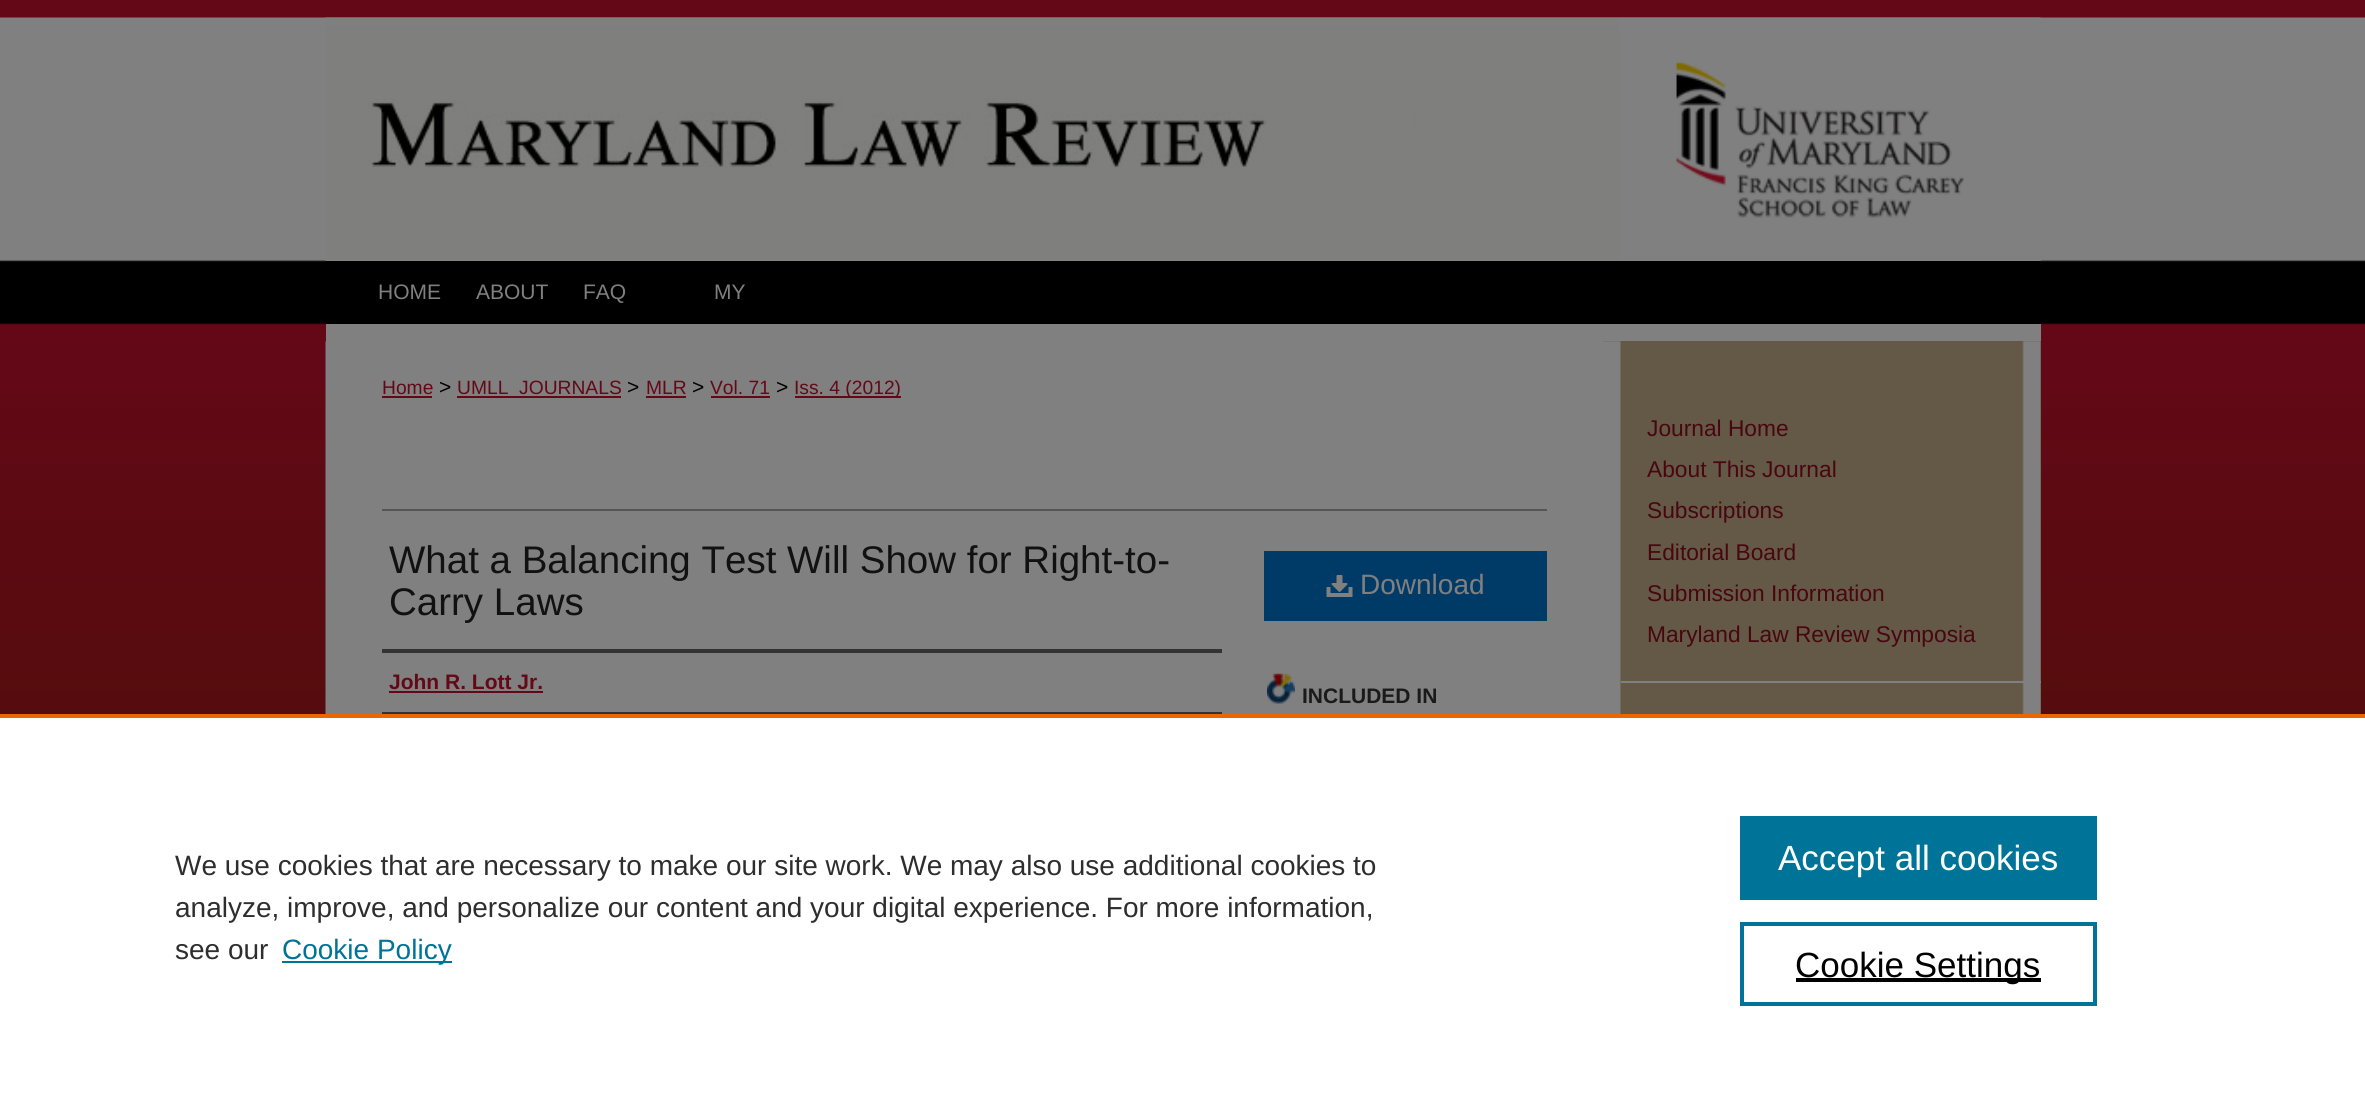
#include <cairo.h>
#include <math.h>
#include <stddef.h>


static void set_color(cairo_t *cr, unsigned color) {
    cairo_set_source_rgb(cr, (color >> 16) / 255.0, (color >> 8 & 255) / 255.0, (color & 255) / 255.0);
}

static void draw_text(cairo_t *cr, double x, double y, const char *s, const char *family, double size, int italic, int bold, unsigned color) {
    cairo_select_font_face(cr, family, italic ? CAIRO_FONT_SLANT_ITALIC : CAIRO_FONT_SLANT_NORMAL,
        bold ? CAIRO_FONT_WEIGHT_BOLD : CAIRO_FONT_WEIGHT_NORMAL);
    cairo_set_font_size(cr, size);
    set_color(cr, color);
    cairo_move_to(cr, x, y);
    cairo_show_text(cr, s);
}

static void fill_rect(cairo_t *cr, double x, double y, double w, double h, unsigned color) {
    set_color(cr, color);
    cairo_rectangle(cr, x, y, w, h);
    cairo_fill(cr);
}

static void draw_image(cairo_t *cr, const char *path, double x, double y, double w, double h) {
    cairo_surface_t *image = cairo_image_surface_create_from_png(path);
    cairo_save(cr);
    cairo_set_source_surface(cr, image, x, y);
    cairo_rectangle(cr, x, y, w, h);
    cairo_fill(cr);
    cairo_restore(cr);
    cairo_surface_destroy(image);
}

int main(void) {
    cairo_surface_t *surface = cairo_image_surface_create(CAIRO_FORMAT_RGB24, 2365, 1099);
    cairo_t *cr = cairo_create(surface);
    cairo_font_options_t *options = cairo_font_options_create();
    cairo_font_options_set_hint_metrics(options, CAIRO_HINT_METRICS_OFF);
    cairo_font_options_set_hint_style(options, CAIRO_HINT_STYLE_NONE);
    cairo_set_font_options(cr, options);
    cairo_set_miter_limit(cr, 4);
    set_color(cr, 0xFFFFFF);
    cairo_paint(cr);
    draw_image(cr, "assets/img1.png", 0, 0, 2365, 714);
    fill_rect(cr, 326, 260, 1715, 1, 0x808080);
    draw_image(cr, "assets/img3.png", 1620, 17, 421, 201);
    draw_image(cr, "assets/img2.png", 325, 17, 1296, 244);
    fill_rect(cr, 326, 261, 1715, 63, 0x000000);
    fill_rect(cr, 326, 324, 1715, 17, 0x808080);
    draw_text(cr, 378, 299, "HOME", "Liberation Sans", 21, 0, 0, 0x808080);
    draw_text(cr, 476, 299, "ABOUT", "Liberation Sans", 21, 0, 0, 0x808080);
    draw_text(cr, 583, 299, "FAQ", "Liberation Sans", 21, 0, 0, 0x808080);
    draw_text(cr, 714, 299, "MY", "Liberation Sans", 21, 0, 0, 0x808080);
    fill_rect(cr, 1603, 341, 438, 373, 0x645946);
    draw_image(cr, "assets/img4.png", 325, 341, 1716, 373);
    fill_rect(cr, 326, 341, 1277, 1, 0x808080);
    draw_text(cr, 382, 394, "Home", "Liberation Sans", 19.25, 0, 0, 0x640817);
    fill_rect(cr, 382, 396, 50, 2, 0x640817);
    draw_text(cr, 439, 394, ">", "Liberation Sans", 21, 0, 0, 0x000000);
    fill_rect(cr, 457, 396, 164, 2, 0x640817);
    draw_text(cr, 457, 394, "UMLL_JOURNALS", "Liberation Sans", 19.25, 0, 0, 0x640817);
    draw_text(cr, 627, 394, ">", "Liberation Sans", 21, 0, 0, 0x000000);
    draw_text(cr, 646, 394, "MLR", "Liberation Sans", 19.25, 0, 0, 0x640817);
    fill_rect(cr, 646, 396, 40, 2, 0x640817);
    draw_text(cr, 692, 394, ">", "Liberation Sans", 21, 0, 0, 0x000000);
    draw_text(cr, 710, 394, "Vol. 71", "Liberation Sans", 19.25, 0, 0, 0x640817);
    fill_rect(cr, 711, 396, 59, 2, 0x640817);
    draw_text(cr, 776, 394, ">", "Liberation Sans", 21, 0, 0, 0x000000);
    fill_rect(cr, 795, 396, 106, 2, 0x640817);
    draw_text(cr, 794, 394, "Iss. 4 (2012)", "Liberation Sans", 19.25, 0, 0, 0x640817);
    fill_rect(cr, 382, 509, 1165, 2, 0x555555);
    draw_text(cr, 389, 573, "What a Balancing Test Will Show for Right-to-", "Liberation Sans", 38.5, 0, 0, 0x111111);
    draw_text(cr, 389, 615, "Carry Laws", "Liberation Sans", 38.5, 0, 0, 0x111111);
    fill_rect(cr, 382, 649, 840, 4, 0x333333);
    fill_rect(cr, 382, 712, 840, 2, 0x333333);
    draw_text(cr, 389, 689, "John R. Lott Jr.", "Liberation Sans", 21, 0, 1, 0x640817);
    fill_rect(cr, 389, 691, 154, 2, 0x640817);
    fill_rect(cr, 1264, 551, 283, 70, 0x003A66);
    draw_image(cr, "assets/img5.png", 1326, 575, 27, 22);
    draw_text(cr, 1360, 594, "Download", "Liberation Sans", 28, 0, 0, 0x808080);
    draw_image(cr, "assets/img6.png", 1267, 673, 28, 31);
    draw_text(cr, 1302, 703, "INCLUDED IN", "Liberation Sans", 21, 0, 1, 0x1A1A1A);
    draw_text(cr, 1647, 436, "Journal Home", "Liberation Sans", 22.75, 0, 0, 0x480611);
    draw_text(cr, 1647, 477, "About This Journal", "Liberation Sans", 22.75, 0, 0, 0x480611);
    draw_text(cr, 1647, 518, "Subscriptions", "Liberation Sans", 22.75, 0, 0, 0x480611);
    draw_text(cr, 1647, 560, "Editorial Board", "Liberation Sans", 22.75, 0, 0, 0x480611);
    draw_text(cr, 1647, 601, "Submission Information", "Liberation Sans", 22.75, 0, 0, 0x480611);
    draw_text(cr, 1647, 642, "Maryland Law Review Symposia", "Liberation Sans", 22.75, 0, 0, 0x480611);
    fill_rect(cr, 1621, 681, 420, 2, 0x808080);
    fill_rect(cr, 0, 714, 2365, 4, 0xEB6500);
    draw_text(cr, 175, 875, "We use cookies that are necessary to make our site work. We may also use additional cookies to", "Liberation Sans", 28, 0, 0, 0x2E2E2E);
    draw_text(cr, 175, 917, "analyze, improve, and personalize our content and your digital experience. For more information,", "Liberation Sans", 28, 0, 0, 0x2E2E2E);
    draw_text(cr, 175, 959, "see our", "Liberation Sans", 28, 0, 0, 0x2E2E2E);
    fill_rect(cr, 282, 961, 170, 2, 0x007398);
    draw_text(cr, 282, 959, "Cookie Policy", "Liberation Sans", 28, 0, 0, 0x007398);
    fill_rect(cr, 1740, 816, 357, 84, 0x007398);
    draw_text(cr, 1778, 870, "Accept all cookies", "Liberation Sans", 35, 0, 0, 0xFFFFFF);
    cairo_rectangle(cr, 1742, 924, 353, 80);
    set_color(cr, 0x007398);
    cairo_set_line_width(cr, 4);
    cairo_stroke(cr);
    fill_rect(cr, 1796, 978, 245, 4, 0x000000);
    draw_text(cr, 1795, 977, "Cookie Settings", "Liberation Sans", 35, 0, 0, 0x000000);
    cairo_surface_write_to_png(surface, "output.png");
    cairo_font_options_destroy(options);
    cairo_destroy(cr);
    cairo_surface_destroy(surface);
    return 0;
}
